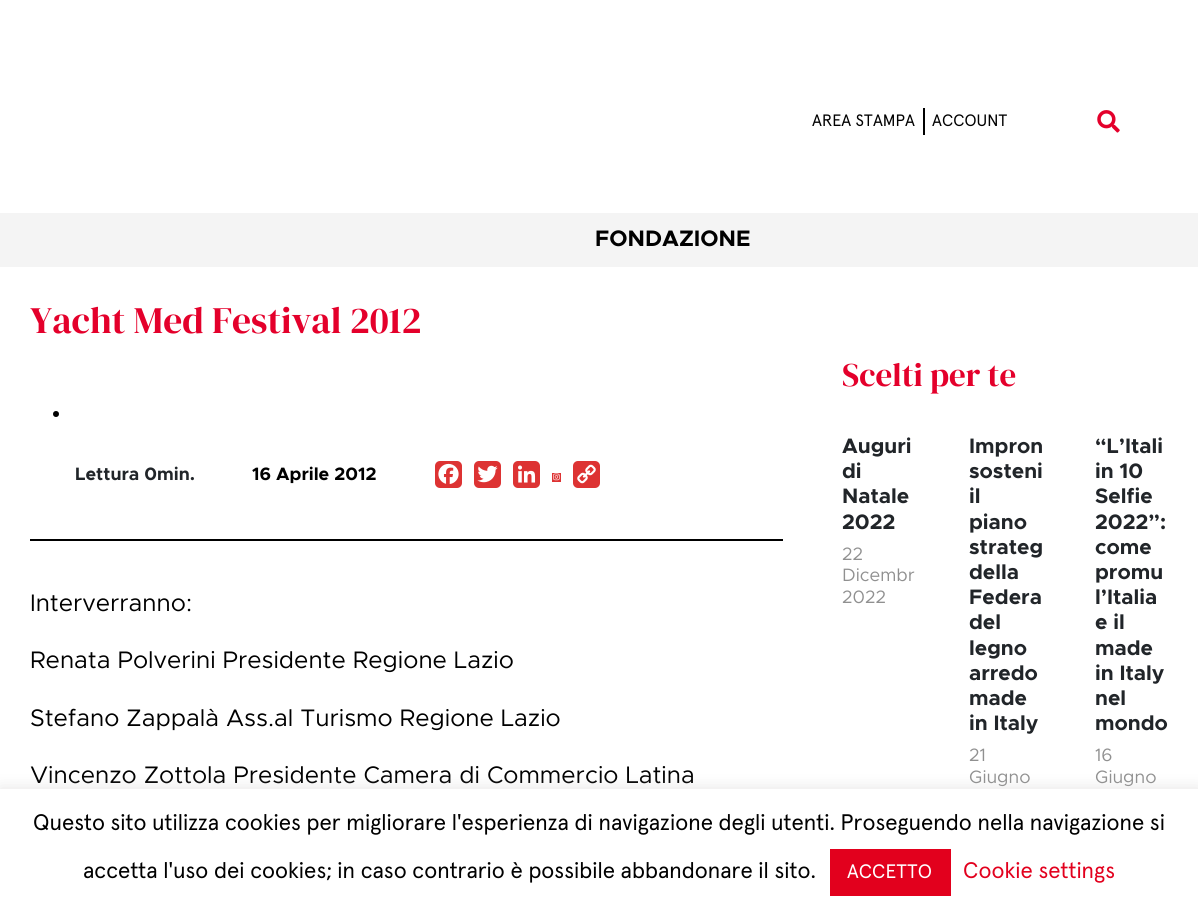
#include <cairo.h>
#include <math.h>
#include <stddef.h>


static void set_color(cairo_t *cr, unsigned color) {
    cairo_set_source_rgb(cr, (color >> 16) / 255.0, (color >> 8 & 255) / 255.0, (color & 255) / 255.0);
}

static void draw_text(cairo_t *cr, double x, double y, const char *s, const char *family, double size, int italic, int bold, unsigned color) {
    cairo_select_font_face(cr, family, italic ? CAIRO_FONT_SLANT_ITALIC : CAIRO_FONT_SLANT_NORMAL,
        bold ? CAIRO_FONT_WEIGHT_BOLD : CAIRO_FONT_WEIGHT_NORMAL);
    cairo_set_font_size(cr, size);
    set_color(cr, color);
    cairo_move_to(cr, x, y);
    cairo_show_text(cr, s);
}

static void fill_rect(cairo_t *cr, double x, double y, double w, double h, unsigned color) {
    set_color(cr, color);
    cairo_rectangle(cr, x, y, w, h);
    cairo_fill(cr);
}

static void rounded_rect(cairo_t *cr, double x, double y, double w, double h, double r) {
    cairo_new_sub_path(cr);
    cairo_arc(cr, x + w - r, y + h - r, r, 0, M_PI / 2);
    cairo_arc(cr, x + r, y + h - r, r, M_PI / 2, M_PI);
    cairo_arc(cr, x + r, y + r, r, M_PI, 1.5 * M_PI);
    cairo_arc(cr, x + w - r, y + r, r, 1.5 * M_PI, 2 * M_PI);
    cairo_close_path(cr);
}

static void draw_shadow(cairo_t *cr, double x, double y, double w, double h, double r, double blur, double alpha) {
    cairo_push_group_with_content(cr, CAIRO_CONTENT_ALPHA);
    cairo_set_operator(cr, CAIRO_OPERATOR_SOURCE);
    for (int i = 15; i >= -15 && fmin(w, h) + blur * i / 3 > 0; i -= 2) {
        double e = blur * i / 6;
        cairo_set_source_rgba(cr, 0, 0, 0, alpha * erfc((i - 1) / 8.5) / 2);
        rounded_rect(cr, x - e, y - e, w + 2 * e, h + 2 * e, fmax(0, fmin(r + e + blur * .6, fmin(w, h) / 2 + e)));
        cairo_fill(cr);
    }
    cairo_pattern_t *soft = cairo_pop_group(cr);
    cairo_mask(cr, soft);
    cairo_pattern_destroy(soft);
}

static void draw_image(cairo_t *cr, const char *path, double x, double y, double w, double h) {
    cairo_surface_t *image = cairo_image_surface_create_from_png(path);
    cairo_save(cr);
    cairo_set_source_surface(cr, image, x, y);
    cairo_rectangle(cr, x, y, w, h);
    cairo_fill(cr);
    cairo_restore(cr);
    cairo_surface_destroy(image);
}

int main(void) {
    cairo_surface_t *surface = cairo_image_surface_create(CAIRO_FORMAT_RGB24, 1198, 921);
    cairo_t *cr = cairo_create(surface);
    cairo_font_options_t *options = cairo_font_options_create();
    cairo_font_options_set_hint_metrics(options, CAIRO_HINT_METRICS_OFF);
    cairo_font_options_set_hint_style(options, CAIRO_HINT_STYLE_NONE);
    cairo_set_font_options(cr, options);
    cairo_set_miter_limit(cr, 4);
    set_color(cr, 0xFFFFFF);
    cairo_paint(cr);
    draw_text(cr, 812, 126, "AREA STAMPA", "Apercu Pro", 16.5, 0, 0, 0x000000);
    fill_rect(cr, 923, 108, 2, 27, 0x000000);
    draw_text(cr, 932, 126, "ACCOUNT", "Apercu Pro", 16.5, 0, 0, 0x000000);
    draw_image(cr, "assets/img1.png", 1097, 110, 23, 23);
    fill_rect(cr, 0, 213, 1198, 54, 0xF4F4F4);
    draw_text(cr, 595, 246, "FONDAZIONE", "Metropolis", 22.5, 0, 1, 0x000000);
    draw_text(cr, 30, 333, "Yacht Med Festival 2012", "DM Serif Display", 37.5, 0, 0, 0xE4002B);
    set_color(cr, 0x000000);
    cairo_new_path(cr);
    cairo_arc(cr, 56, 414, 3, 0, 2 * M_PI);
    cairo_fill(cr);
    draw_text(cr, 75, 480, "Lettura 0min.", "Metropolis", 18, 0, 1, 0x212529);
    draw_text(cr, 252, 480, "16 Aprile 2012", "Metropolis", 18, 0, 1, 0x000000);
    set_color(cr, 0xDD3333);
    rounded_rect(cr, 435, 461, 27, 27, 5);
    cairo_fill(cr);
    draw_image(cr, "assets/img2.png", 438, 463, 21, 21);
    rounded_rect(cr, 474, 461, 27, 27, 5);
    cairo_fill(cr);
    draw_image(cr, "assets/img3.png", 477, 465, 21, 18);
    rounded_rect(cr, 513, 461, 27, 27, 5);
    cairo_fill(cr);
    draw_image(cr, "assets/img4.png", 518, 465, 18, 18);
    fill_rect(cr, 552, 473, 9, 9, 0xDD3333);
    draw_image(cr, "assets/img5.png", 553, 473, 7, 8);
    rounded_rect(cr, 573, 461, 27, 27, 5);
    cairo_fill(cr);
    draw_image(cr, "assets/img6.png", 577, 464, 19, 20);
    fill_rect(cr, 30, 539, 753, 2, 0x000000);
    draw_text(cr, 30, 611, "Interverranno:", "Metropolis", 24, 0, 0, 0x000000);
    draw_text(cr, 30, 668, "Renata Polverini Presidente Regione Lazio", "Metropolis", 24, 0, 0, 0x000000);
    draw_text(cr, 30, 726, "Stefano Zappalà Ass.al Turismo Regione Lazio", "Metropolis", 24, 0, 0, 0x000000);
    draw_text(cr, 30, 783, "Vincenzo Zottola Presidente Camera di Commercio Latina", "Metropolis", 24, 0, 0, 0x000000);
    draw_text(cr, 842, 386, "Scelti per te", "DM Serif Display", 33, 0, 0, 0xE4002B);
    draw_text(cr, 842, 453, "Auguri", "Metropolis", 21, 0, 1, 0x212529);
    draw_text(cr, 842, 478, "di", "Metropolis", 21, 0, 1, 0x212529);
    draw_text(cr, 842, 503, "Natale", "Metropolis", 21, 0, 1, 0x212529);
    draw_text(cr, 842, 529, "2022", "Metropolis", 21, 0, 1, 0x212529);
    draw_text(cr, 842, 560, "22", "Metropolis", 18, 0, 0, 0x909090);
    draw_text(cr, 842, 581, "Dicembr", "Metropolis", 18, 0, 0, 0x909090);
    draw_text(cr, 842, 603, "2022", "Metropolis", 18, 0, 0, 0x909090);
    draw_text(cr, 969, 453, "Impron", "Metropolis", 21, 0, 1, 0x212529);
    draw_text(cr, 969, 478, "sosteni", "Metropolis", 21, 0, 1, 0x212529);
    draw_text(cr, 969, 503, "il", "Metropolis", 21, 0, 1, 0x212529);
    draw_text(cr, 969, 529, "piano", "Metropolis", 21, 0, 1, 0x212529);
    draw_text(cr, 969, 554, "strateg", "Metropolis", 21, 0, 1, 0x212529);
    draw_text(cr, 969, 579, "della", "Metropolis", 21, 0, 1, 0x212529);
    draw_text(cr, 969, 604, "Federa", "Metropolis", 21, 0, 1, 0x212529);
    draw_text(cr, 969, 629, "del", "Metropolis", 21, 0, 1, 0x212529);
    draw_text(cr, 969, 655, "legno", "Metropolis", 21, 0, 1, 0x212529);
    draw_text(cr, 969, 680, "arredo", "Metropolis", 21, 0, 1, 0x212529);
    draw_text(cr, 969, 705, "made", "Metropolis", 21, 0, 1, 0x212529);
    draw_text(cr, 969, 730, "in Italy", "Metropolis", 21, 0, 1, 0x212529);
    draw_text(cr, 969, 761, "21", "Metropolis", 18, 0, 0, 0x909090);
    draw_text(cr, 969, 783, "Giugno", "Metropolis", 18, 0, 0, 0x909090);
    draw_text(cr, 1095, 453, "“L’Itali", "Metropolis", 21, 0, 1, 0x212529);
    draw_text(cr, 1095, 478, "in 10", "Metropolis", 21, 0, 1, 0x212529);
    draw_text(cr, 1095, 503, "Selfie", "Metropolis", 21, 0, 1, 0x212529);
    draw_text(cr, 1095, 529, "2022”:", "Metropolis", 21, 0, 1, 0x212529);
    draw_text(cr, 1095, 554, "come", "Metropolis", 21, 0, 1, 0x212529);
    draw_text(cr, 1095, 579, "promu", "Metropolis", 21, 0, 1, 0x212529);
    draw_text(cr, 1095, 604, "l’Italia", "Metropolis", 21, 0, 1, 0x212529);
    draw_text(cr, 1095, 629, "e il", "Metropolis", 21, 0, 1, 0x212529);
    draw_text(cr, 1095, 655, "made", "Metropolis", 21, 0, 1, 0x212529);
    draw_text(cr, 1095, 680, "in Italy", "Metropolis", 21, 0, 1, 0x212529);
    draw_text(cr, 1095, 705, "nel", "Metropolis", 21, 0, 1, 0x212529);
    draw_text(cr, 1095, 730, "mondo", "Metropolis", 21, 0, 1, 0x212529);
    draw_text(cr, 1095, 761, "16", "Metropolis", 18, 0, 0, 0x909090);
    draw_text(cr, 1095, 783, "Giugno", "Metropolis", 18, 0, 0, 0x909090);
    set_color(cr, 0xACABAB);
    draw_shadow(cr, 0, 788, 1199, 132, 0, 7.5, 0.3);
    fill_rect(cr, 0, 789, 1198, 132, 0xFFFFFF);
    draw_text(cr, 33, 830, "Questo sito utilizza cookies per migliorare l'esperienza di navigazione degli utenti. Proseguendo nella navigazione si", "Apercu Pro", 22.5, 0, 0, 0x000000);
    draw_text(cr, 83, 878, "accetta l'uso dei cookies; in caso contrario è possibile abbandonare il sito.", "Apercu Pro", 22.5, 0, 0, 0x000000);
    fill_rect(cr, 830, 849, 121, 47, 0xE2001D);
    draw_text(cr, 847, 878, "ACCETTO", "Apercu Pro", 19.5, 0, 0, 0xFFFFFF);
    draw_text(cr, 963, 878, "Cookie settings", "Apercu Pro", 22.5, 0, 0, 0xE2001D);
    cairo_surface_write_to_png(surface, "output.png");
    cairo_font_options_destroy(options);
    cairo_destroy(cr);
    cairo_surface_destroy(surface);
    return 0;
}
